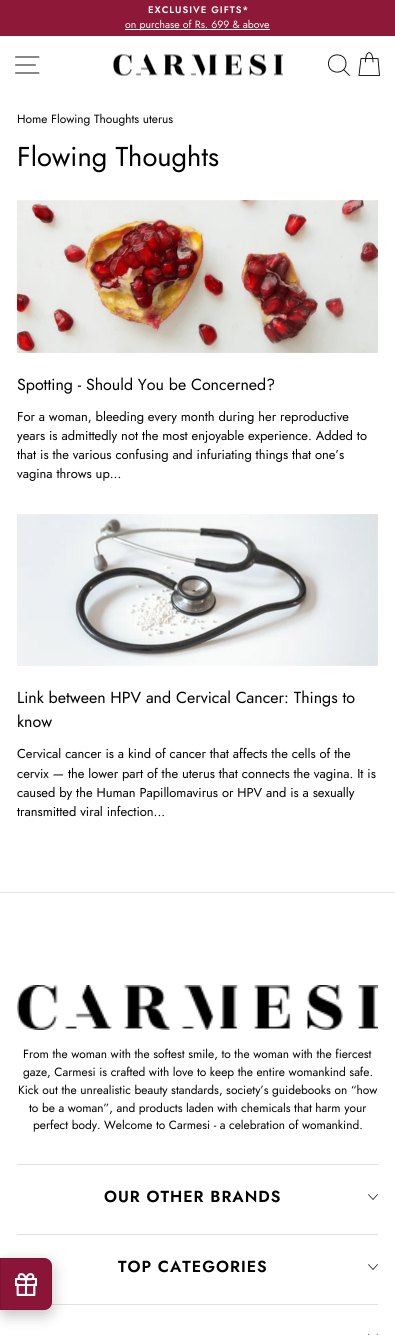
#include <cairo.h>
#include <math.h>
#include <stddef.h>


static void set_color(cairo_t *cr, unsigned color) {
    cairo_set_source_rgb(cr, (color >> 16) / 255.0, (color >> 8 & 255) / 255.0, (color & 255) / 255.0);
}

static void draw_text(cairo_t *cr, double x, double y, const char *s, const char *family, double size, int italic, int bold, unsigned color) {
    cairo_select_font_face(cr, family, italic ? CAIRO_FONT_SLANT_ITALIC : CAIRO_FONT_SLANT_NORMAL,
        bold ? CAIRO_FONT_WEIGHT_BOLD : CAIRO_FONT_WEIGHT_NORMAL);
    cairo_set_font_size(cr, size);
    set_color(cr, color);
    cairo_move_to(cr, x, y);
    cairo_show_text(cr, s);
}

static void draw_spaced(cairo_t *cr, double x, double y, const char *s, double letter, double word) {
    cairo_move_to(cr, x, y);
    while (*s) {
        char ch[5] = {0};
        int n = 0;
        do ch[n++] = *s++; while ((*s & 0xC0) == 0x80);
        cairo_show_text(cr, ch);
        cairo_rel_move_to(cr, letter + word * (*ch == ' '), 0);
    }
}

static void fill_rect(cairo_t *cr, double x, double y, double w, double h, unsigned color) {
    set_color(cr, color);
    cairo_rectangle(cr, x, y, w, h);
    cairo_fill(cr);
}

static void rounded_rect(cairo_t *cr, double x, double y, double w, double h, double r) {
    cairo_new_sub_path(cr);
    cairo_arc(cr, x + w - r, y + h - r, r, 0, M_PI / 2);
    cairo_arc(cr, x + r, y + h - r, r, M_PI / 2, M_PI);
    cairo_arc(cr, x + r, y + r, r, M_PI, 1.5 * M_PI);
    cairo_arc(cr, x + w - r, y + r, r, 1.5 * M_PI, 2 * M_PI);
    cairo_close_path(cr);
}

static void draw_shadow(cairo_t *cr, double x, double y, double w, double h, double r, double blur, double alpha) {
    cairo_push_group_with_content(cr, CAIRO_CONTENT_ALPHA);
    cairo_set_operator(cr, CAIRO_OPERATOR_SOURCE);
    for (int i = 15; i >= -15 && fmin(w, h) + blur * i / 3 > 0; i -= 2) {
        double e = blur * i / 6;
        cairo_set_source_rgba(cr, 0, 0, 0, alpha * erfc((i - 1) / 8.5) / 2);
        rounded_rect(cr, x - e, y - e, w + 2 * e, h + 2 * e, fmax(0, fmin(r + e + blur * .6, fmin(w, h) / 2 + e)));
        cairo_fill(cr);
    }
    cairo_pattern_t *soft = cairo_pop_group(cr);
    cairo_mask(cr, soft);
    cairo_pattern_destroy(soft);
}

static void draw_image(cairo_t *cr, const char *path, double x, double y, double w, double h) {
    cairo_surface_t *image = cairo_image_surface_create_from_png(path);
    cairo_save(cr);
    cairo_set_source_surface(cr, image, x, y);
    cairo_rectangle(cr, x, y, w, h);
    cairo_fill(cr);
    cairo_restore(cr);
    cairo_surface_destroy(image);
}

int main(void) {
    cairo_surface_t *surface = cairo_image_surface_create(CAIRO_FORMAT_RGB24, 395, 1335);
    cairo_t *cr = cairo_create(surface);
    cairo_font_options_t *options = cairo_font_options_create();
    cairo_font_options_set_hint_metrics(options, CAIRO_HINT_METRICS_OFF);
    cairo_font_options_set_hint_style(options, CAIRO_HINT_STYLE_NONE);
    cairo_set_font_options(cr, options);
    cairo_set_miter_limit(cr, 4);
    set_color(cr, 0xFFFFFF);
    cairo_paint(cr);
    fill_rect(cr, 0, 0, 395, 36, 0x8E1838);
    cairo_select_font_face(cr, "Jost SemiBold", CAIRO_FONT_SLANT_NORMAL, CAIRO_FONT_WEIGHT_NORMAL);
    cairo_set_font_size(cr, 9.5);
    set_color(cr, 0xFFFFFF);
    draw_spaced(cr, 148, 13, "EXCLUSIVE GIFTS*", 1, 0);
    fill_rect(cr, 125, 29, 145, 1, 0xFFFFFF);
    draw_text(cr, 125, 28, "on purchase of Rs. 699 & above", "Jost", 10.5, 0, 0, 0xFFFFFF);
    cairo_new_path(cr);
    cairo_move_to(cr, 15.5, 57);
    cairo_line_to(cr, 39, 57);
    cairo_move_to(cr, 15.5, 65);
    cairo_line_to(cr, 35.5, 65);
    cairo_move_to(cr, 15.5, 73);
    cairo_line_to(cr, 39, 73);
    set_color(cr, 0x000000);
    cairo_set_line_width(cr, 0.9);
    cairo_set_line_cap(cr, CAIRO_LINE_CAP_ROUND);
    cairo_set_line_join(cr, CAIRO_LINE_JOIN_ROUND);
    cairo_stroke(cr);
    draw_image(cr, "assets/img1.png", 113, 54, 170, 22);
    cairo_new_path(cr);
    cairo_move_to(cr, 346, 63.5);
    cairo_curve_to(cr, 346, 75, 328.5, 75, 328.5, 63.5);
    cairo_curve_to(cr, 328.5, 52, 346, 52, 346, 63.5);
    cairo_close_path(cr);
    cairo_move_to(cr, 349.5, 75.5);
    cairo_line_to(cr, 343.5, 69.5);
    cairo_move_to(cr, 365.5, 62);
    cairo_curve_to(cr, 365.5, 49.5, 373, 49.5, 373, 62);
    cairo_move_to(cr, 361, 58.5);
    cairo_line_to(cr, 378, 58.5);
    cairo_line_to(cr, 379.5, 75.5);
    cairo_line_to(cr, 359, 75.5);
    cairo_close_path(cr);
    cairo_stroke(cr);
    draw_text(cr, 17, 123, "Home Flowing Thoughts uterus", "Jost", 11.9, 0, 0, 0x000000);
    draw_text(cr, 17, 166, "Flowing Thoughts", "Jost", 27.25, 0, 0, 0x000000);
    draw_image(cr, "assets/img2.png", 17, 200, 361, 153);
    draw_text(cr, 17, 390, "Spotting - Should You be Concerned?", "Jost", 16, 0, 0, 0x000000);
    draw_text(cr, 17, 421, "For a woman, bleeding every month during her reproductive", "Jost", 12.9, 0, 0, 0x000000);
    draw_text(cr, 17, 440, "years is admittedly not the most enjoyable experience. Added to", "Jost", 12.9, 0, 0, 0x000000);
    draw_text(cr, 17, 459, "that is the various confusing and infuriating things that one’s", "Jost", 12.9, 0, 0, 0x000000);
    draw_text(cr, 17, 478, "vagina throws up...", "Jost", 12.9, 0, 0, 0x000000);
    draw_image(cr, "assets/img3.png", 17, 514, 361, 152);
    draw_text(cr, 17, 703, "Link between HPV and Cervical Cancer: Things to", "Jost", 16, 0, 0, 0x000000);
    draw_text(cr, 17, 727, "know", "Jost", 16, 0, 0, 0x000000);
    draw_text(cr, 17, 758, "Cervical cancer is a kind of cancer that affects the cells of the", "Jost", 12.9, 0, 0, 0x000000);
    draw_text(cr, 17, 778, "cervix — the lower part of the uterus that connects the vagina. It is", "Jost", 12.9, 0, 0, 0x000000);
    draw_text(cr, 17, 797, "caused by the Human Papillomavirus or HPV and is a sexually", "Jost", 12.9, 0, 0, 0x000000);
    draw_text(cr, 17, 816, "transmitted viral infection...", "Jost", 12.9, 0, 0, 0x000000);
    fill_rect(cr, 0, 892, 395, 1, 0xE8E8E1);
    draw_image(cr, "assets/img4.png", 17, 985, 361, 45);
    draw_text(cr, 23, 1058, "From the woman with the softest smile, to the woman with the fiercest", "Jost", 11.9, 0, 0, 0x000000);
    draw_text(cr, 23, 1076, "gaze, Carmesi is crafted with love to keep the entire womankind safe.", "Jost", 11.9, 0, 0, 0x000000);
    draw_text(cr, 18, 1094, "Kick out the unrealistic beauty standards, society’s guidebooks on “how", "Jost", 11.9, 0, 0, 0x000000);
    draw_text(cr, 29, 1112, "to be a woman”, and products laden with chemicals that harm your", "Jost", 11.9, 0, 0, 0x000000);
    draw_text(cr, 33, 1129, "perfect body. Welcome to Carmesi - a celebration of womankind.", "Jost", 11.9, 0, 0, 0x000000);
    fill_rect(cr, 17, 1164, 361, 1, 0xE0E0E0);
    cairo_select_font_face(cr, "Jost SemiBold", CAIRO_FONT_SLANT_NORMAL, CAIRO_FONT_WEIGHT_NORMAL);
    cairo_set_font_size(cr, 16);
    set_color(cr, 0x000000);
    draw_spaced(cr, 104, 1202, "OUR OTHER BRANDS", 1, 0);
    cairo_new_path(cr);
    cairo_move_to(cr, 368.5, 1194.5);
    cairo_line_to(cr, 373, 1199.5);
    cairo_line_to(cr, 377.5, 1194.5);
    cairo_set_line_width(cr, 0.7);
    cairo_stroke(cr);
    fill_rect(cr, 17, 1234, 361, 1, 0xE0E0E0);
    set_color(cr, 0x000000);
    draw_spaced(cr, 118, 1272, "TOP CATEGORIES", 1, 0);
    cairo_new_path(cr);
    cairo_move_to(cr, 368.5, 1264.5);
    cairo_line_to(cr, 373, 1269.5);
    cairo_line_to(cr, 377.5, 1264.5);
    cairo_stroke(cr);
    fill_rect(cr, 51, 1304, 327, 1, 0xE0E0E0);
    cairo_new_path(cr);
    cairo_move_to(cr, 368.5, 1334.5);
    cairo_line_to(cr, 373, 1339.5);
    cairo_line_to(cr, 377.5, 1334.5);
    set_color(cr, 0x000000);
    cairo_stroke(cr);
    set_color(cr, 0x000000);
    draw_shadow(cr, 0, 1263, 52, 52, 8, 7.5, 0.25);
    set_color(cr, 0x8A1538);
    cairo_new_path(cr);
    cairo_move_to(cr, 0, 1258);
    cairo_line_to(cr, 44, 1258);
    cairo_curve_to(cr, 48.5, 1258, 52, 1261.5, 52, 1266);
    cairo_line_to(cr, 52, 1302);
    cairo_curve_to(cr, 52, 1306.5, 48.5, 1310, 44, 1310);
    cairo_line_to(cr, 0, 1310);
    cairo_close_path(cr);
    cairo_fill(cr);
    cairo_new_path(cr);
    cairo_move_to(cr, 0.5, 1258.5);
    cairo_line_to(cr, 44, 1258.5);
    cairo_curve_to(cr, 48, 1258.5, 51.5, 1262, 51.5, 1266);
    cairo_line_to(cr, 51.5, 1302);
    cairo_curve_to(cr, 51.5, 1306, 48, 1309.5, 44, 1309.5);
    cairo_line_to(cr, 0.5, 1309.5);
    cairo_close_path(cr);
    cairo_set_source_rgba(cr, 0, 0, 0, 0.1);
    cairo_set_line_width(cr, 1);
    cairo_set_line_cap(cr, CAIRO_LINE_CAP_BUTT);
    cairo_set_line_join(cr, CAIRO_LINE_JOIN_MITER);
    cairo_stroke(cr);
    draw_image(cr, "assets/img5.png", 15, 1273, 22, 23);
    cairo_surface_write_to_png(surface, "output.png");
    cairo_font_options_destroy(options);
    cairo_destroy(cr);
    cairo_surface_destroy(surface);
    return 0;
}
